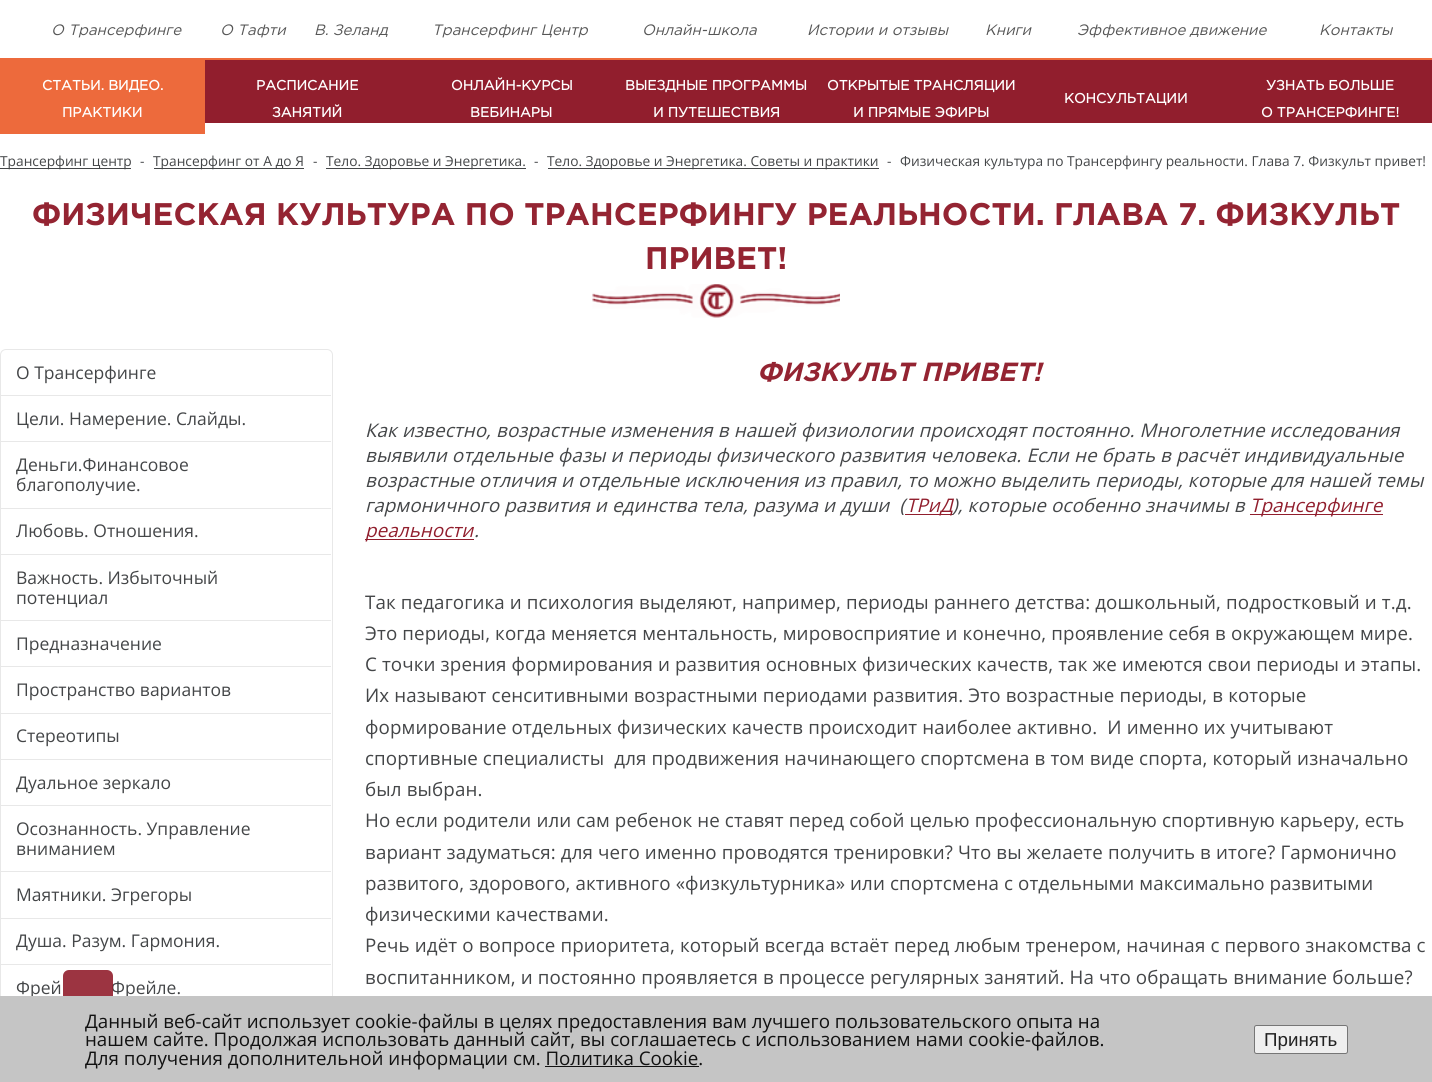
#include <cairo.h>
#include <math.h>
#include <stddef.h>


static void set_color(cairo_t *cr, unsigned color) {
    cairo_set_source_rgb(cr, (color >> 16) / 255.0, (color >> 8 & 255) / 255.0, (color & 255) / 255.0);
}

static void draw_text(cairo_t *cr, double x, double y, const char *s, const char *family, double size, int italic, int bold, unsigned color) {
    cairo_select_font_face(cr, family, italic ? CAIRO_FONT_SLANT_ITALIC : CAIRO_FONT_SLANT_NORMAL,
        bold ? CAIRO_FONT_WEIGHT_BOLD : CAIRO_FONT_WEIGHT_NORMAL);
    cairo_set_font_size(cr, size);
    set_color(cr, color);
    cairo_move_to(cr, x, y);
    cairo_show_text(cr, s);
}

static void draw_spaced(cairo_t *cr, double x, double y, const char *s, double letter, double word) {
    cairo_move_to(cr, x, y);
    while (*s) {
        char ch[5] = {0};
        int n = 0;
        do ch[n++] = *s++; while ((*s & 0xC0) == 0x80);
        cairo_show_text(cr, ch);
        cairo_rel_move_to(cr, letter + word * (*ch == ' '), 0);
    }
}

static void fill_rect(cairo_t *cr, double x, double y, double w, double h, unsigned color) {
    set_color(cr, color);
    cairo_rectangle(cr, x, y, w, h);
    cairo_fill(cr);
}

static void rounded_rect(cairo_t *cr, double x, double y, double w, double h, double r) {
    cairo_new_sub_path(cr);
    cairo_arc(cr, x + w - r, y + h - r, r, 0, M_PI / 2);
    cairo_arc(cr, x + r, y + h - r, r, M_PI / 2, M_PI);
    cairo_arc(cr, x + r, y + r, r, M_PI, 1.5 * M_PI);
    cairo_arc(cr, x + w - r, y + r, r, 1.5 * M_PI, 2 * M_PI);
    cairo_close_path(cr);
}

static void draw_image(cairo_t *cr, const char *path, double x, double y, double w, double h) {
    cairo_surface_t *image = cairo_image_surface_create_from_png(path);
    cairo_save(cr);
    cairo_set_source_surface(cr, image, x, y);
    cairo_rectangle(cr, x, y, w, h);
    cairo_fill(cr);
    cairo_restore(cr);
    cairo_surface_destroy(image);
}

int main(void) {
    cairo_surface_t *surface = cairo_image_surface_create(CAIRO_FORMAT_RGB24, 1432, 1082);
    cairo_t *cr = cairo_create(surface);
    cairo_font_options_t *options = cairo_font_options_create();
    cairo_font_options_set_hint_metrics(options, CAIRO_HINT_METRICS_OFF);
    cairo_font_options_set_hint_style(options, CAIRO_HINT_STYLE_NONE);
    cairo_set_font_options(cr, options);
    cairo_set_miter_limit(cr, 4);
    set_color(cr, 0xFFFFFF);
    cairo_paint(cr);
    draw_text(cr, 51, 35, "О Трансерфинге", "Gotham", 15, 1, 0, 0x565656);
    draw_text(cr, 220, 35, "О Тафти", "Gotham", 15, 1, 0, 0x565656);
    draw_text(cr, 314, 35, "В. Зеланд", "Gotham", 15, 1, 0, 0x565656);
    draw_text(cr, 432, 35, "Трансерфинг Центр", "Gotham", 15, 1, 0, 0x565656);
    draw_text(cr, 642, 35, "Онлайн-школа", "Gotham", 15, 1, 0, 0x565656);
    draw_text(cr, 807, 35, "Истории и отзывы", "Gotham", 15, 1, 0, 0x565656);
    draw_text(cr, 985, 35, "Книги", "Gotham", 15, 1, 0, 0x565656);
    draw_text(cr, 1077, 35, "Эффективное движение", "Gotham", 15, 1, 0, 0x565656);
    draw_text(cr, 1319, 35, "Контакты", "Gotham", 15, 1, 0, 0x565656);
    fill_rect(cr, 0, 58, 1432, 2, 0xED6A3C);
    fill_rect(cr, 205, 60, 1227, 63, 0x911E2D);
    fill_rect(cr, 0, 60, 205, 74, 0xED6A3C);
    draw_text(cr, 42, 90, "СТАТЬИ. ВИДЕО.", "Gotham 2", 13.75, 0, 1, 0xFFFFFF);
    draw_text(cr, 62, 117, "ПРАКТИКИ", "Gotham 2", 13.75, 0, 1, 0xFFFFFF);
    draw_text(cr, 256, 90, "РАСПИСАНИЕ", "Gotham 2", 13.75, 0, 1, 0xFFFFFF);
    draw_text(cr, 272, 117, "ЗАНЯТИЙ", "Gotham 2", 13.75, 0, 1, 0xFFFFFF);
    draw_text(cr, 451, 90, "ОНЛАЙН-КУРСЫ", "Gotham 2", 13.75, 0, 1, 0xFFFFFF);
    draw_text(cr, 470, 117, "ВЕБИНАРЫ", "Gotham 2", 13.75, 0, 1, 0xFFFFFF);
    draw_text(cr, 625, 90, "ВЫЕЗДНЫЕ ПРОГРАММЫ", "Gotham 2", 13.75, 0, 1, 0xFFFFFF);
    draw_text(cr, 653, 117, "И ПУТЕШЕСТВИЯ", "Gotham 2", 13.75, 0, 1, 0xFFFFFF);
    draw_text(cr, 827, 90, "ОТКРЫТЫЕ ТРАНСЛЯЦИИ", "Gotham 2", 13.75, 0, 1, 0xFFFFFF);
    draw_text(cr, 853, 117, "И ПРЯМЫЕ ЭФИРЫ", "Gotham 2", 13.75, 0, 1, 0xFFFFFF);
    draw_text(cr, 1064, 103, "КОНСУЛЬТАЦИИ", "Gotham 2", 13.75, 0, 1, 0xFFFFFF);
    draw_text(cr, 1266, 90, "УЗНАТЬ БОЛЬШЕ", "Gotham 2", 13.75, 0, 1, 0xFFFFFF);
    draw_text(cr, 1261, 117, "О ТРАНСЕРФИНГЕ!", "Gotham 2", 13.75, 0, 1, 0xFFFFFF);
    fill_rect(cr, 0, 168, 131, 1, 0x444648);
    draw_text(cr, 0, 166, "Трансерфинг центр", "Open Sans", 13.75, 0, 0, 0x444648);
    draw_text(cr, 140, 166, "-", "Open Sans", 13.75, 0, 0, 0x444648);
    fill_rect(cr, 154, 168, 150, 1, 0x444648);
    draw_text(cr, 153, 166, "Трансерфинг от А до Я", "Open Sans", 13.75, 0, 0, 0x444648);
    draw_text(cr, 313, 166, "-", "Open Sans", 13.75, 0, 0, 0x444648);
    fill_rect(cr, 326, 168, 200, 1, 0x444648);
    draw_text(cr, 326, 166, "Тело. Здоровье и Энергетика.", "Open Sans", 13.75, 0, 0, 0x444648);
    draw_text(cr, 534, 166, "-", "Open Sans", 13.75, 0, 0, 0x444648);
    fill_rect(cr, 548, 168, 331, 1, 0x444648);
    draw_text(cr, 547, 166, "Тело. Здоровье и Энергетика. Советы и практики", "Open Sans", 13.75, 0, 0, 0x444648);
    draw_text(cr, 887, 166, "-", "Open Sans", 13.75, 0, 0, 0x444648);
    draw_text(cr, 900, 166, "Физическая культура по Трансерфингу реальности. Глава 7. Физкульт привет!", "Open Sans", 13.75, 0, 0, 0x444648);
    draw_text(cr, 32, 225, "ФИЗИЧЕСКАЯ КУЛЬТУРА ПО ТРАНСЕРФИНГУ РЕАЛЬНОСТИ. ГЛАВА 7. ФИЗКУЛЬТ", "Gotham", 31.25, 0, 1, 0x942432);
    draw_text(cr, 645, 269, "ПРИВЕТ!", "Gotham", 31.25, 0, 1, 0x942432);
    draw_image(cr, "assets/img1.png", 592, 284, 248, 34);
    rounded_rect(cr, 0.5, 349.5, 332, 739, 5.5);
    set_color(cr, 0xE8E8E8);
    cairo_set_line_width(cr, 1);
    cairo_stroke(cr);
    draw_text(cr, 16, 379, "О Трансерфинге", "Open Sans", 17.5, 0, 0, 0x444648);
    fill_rect(cr, 1, 395, 330, 1, 0xE8E8E8);
    draw_text(cr, 16, 425, "Цели. Намерение. Слайды.", "Open Sans", 17.5, 0, 0, 0x444648);
    fill_rect(cr, 1, 441, 330, 1, 0xE8E8E8);
    draw_text(cr, 16, 471, "Деньги.Финансовое", "Open Sans", 17.5, 0, 0, 0x444648);
    draw_text(cr, 16, 491, "благополучие.", "Open Sans", 17.5, 0, 0, 0x444648);
    fill_rect(cr, 1, 508, 330, 1, 0xE8E8E8);
    draw_text(cr, 16, 537, "Любовь. Отношения.", "Open Sans", 17.5, 0, 0, 0x444648);
    fill_rect(cr, 1, 554, 330, 1, 0xE8E8E8);
    draw_text(cr, 16, 584, "Важность. Избыточный", "Open Sans", 17.5, 0, 0, 0x444648);
    draw_text(cr, 16, 604, "потенциал", "Open Sans", 17.5, 0, 0, 0x444648);
    fill_rect(cr, 1, 620, 330, 1, 0xE8E8E8);
    draw_text(cr, 16, 650, "Предназначение", "Open Sans", 17.5, 0, 0, 0x444648);
    fill_rect(cr, 1, 666, 330, 1, 0xE8E8E8);
    draw_text(cr, 16, 696, "Пространство вариантов", "Open Sans", 17.5, 0, 0, 0x444648);
    fill_rect(cr, 1, 713, 330, 1, 0xE8E8E8);
    draw_text(cr, 16, 742, "Стереотипы", "Open Sans", 17.5, 0, 0, 0x444648);
    fill_rect(cr, 1, 759, 330, 1, 0xE8E8E8);
    draw_text(cr, 16, 789, "Дуальное зеркало", "Open Sans", 17.5, 0, 0, 0x444648);
    fill_rect(cr, 1, 805, 330, 1, 0xE8E8E8);
    draw_text(cr, 16, 835, "Осознанность. Управление", "Open Sans", 17.5, 0, 0, 0x444648);
    draw_text(cr, 16, 855, "вниманием", "Open Sans", 17.5, 0, 0, 0x444648);
    fill_rect(cr, 1, 871, 330, 1, 0xE8E8E8);
    draw_text(cr, 16, 901, "Маятники. Эгрегоры", "Open Sans", 17.5, 0, 0, 0x444648);
    fill_rect(cr, 1, 918, 330, 1, 0xE8E8E8);
    draw_text(cr, 16, 947, "Душа. Разум. Гармония.", "Open Sans", 17.5, 0, 0, 0x444648);
    fill_rect(cr, 1, 964, 330, 1, 0xE8E8E8);
    draw_text(cr, 16, 994, "Фрей", "Open Sans", 17.5, 0, 0, 0x444648);
    draw_text(cr, 111, 994, "Фрейле.", "Open Sans", 17.5, 0, 0, 0x444648);
    cairo_select_font_face(cr, "Gotham", CAIRO_FONT_SLANT_ITALIC, CAIRO_FONT_WEIGHT_BOLD);
    cairo_set_font_size(cr, 26.25);
    set_color(cr, 0x942432);
    draw_spaced(cr, 757, 381, "ФИЗКУЛЬТ ПРИВЕТ!", 0.12, 0);
    cairo_select_font_face(cr, "Open Sans", CAIRO_FONT_SLANT_ITALIC, CAIRO_FONT_WEIGHT_NORMAL);
    cairo_set_font_size(cr, 18.75);
    set_color(cr, 0x444648);
    draw_spaced(cr, 365, 437, "Как известно, возрастные изменения в нашей физиологии происходят постоянно. Многолетние исследования", 0.12, 0);
    draw_spaced(cr, 365, 462, "выявили отдельные фазы и периоды физического развития человека. Если не брать в расчёт индивидуальные", 0.12, 0);
    draw_spaced(cr, 365, 487, "возрастные отличия и отдельные исключения из правил, то можно выделить периоды, которые для нашей темы", 0.12, 0);
    draw_spaced(cr, 365, 512, "гармоничного развития и единства тела, разума и души  (", 0.12, 0);
    fill_rect(cr, 905, 514, 48, 1, 0x911E2D);
    draw_spaced(cr, 906, 512, "ТРиД", 0.12, 0);
    set_color(cr, 0x444648);
    draw_spaced(cr, 952, 512, "), которые особенно значимы в", 0.12, 0);
    fill_rect(cr, 1250, 514, 133, 1, 0x911E2D);
    draw_spaced(cr, 1250, 512, "Трансерфинге", 0.12, 0);
    fill_rect(cr, 365, 539, 109, 1, 0x911E2D);
    draw_spaced(cr, 365, 537, "реальности", 0.12, 0);
    set_color(cr, 0x444648);
    draw_spaced(cr, 474, 537, ".", 0.12, 0);
    cairo_select_font_face(cr, "Open Sans", CAIRO_FONT_SLANT_NORMAL, CAIRO_FONT_WEIGHT_NORMAL);
    draw_spaced(cr, 365, 609, "Так педагогика и психология выделяют, например, периоды раннего детства: дошкольный, подростковый и т.д.", 0.12, 0);
    draw_spaced(cr, 365, 640, "Это периоды, когда меняется ментальность, мировосприятие и конечно, проявление себя в окружающем мире.", 0.12, 0);
    draw_spaced(cr, 365, 671, "С точки зрения формирования и развития основных физических качеств, так же имеются свои периоды и этапы.", 0.12, 0);
    draw_spaced(cr, 365, 702, "Их называют сенситивными возрастными периодами развития. Это возрастные периоды, в которые", 0.12, 0);
    draw_spaced(cr, 365, 734, "формирование отдельных физических качеств происходит наиболее активно.  И именно их учитывают", 0.12, 0);
    draw_spaced(cr, 365, 765, "спортивные специалисты  для продвижения начинающего спортсмена в том виде спорта, который изначально", 0.12, 0);
    draw_spaced(cr, 365, 796, "был выбран.", 0.12, 0);
    draw_spaced(cr, 365, 827, "Но если родители или сам ребенок не ставят перед собой целью профессиональную спортивную карьеру, есть", 0.12, 0);
    draw_spaced(cr, 365, 859, "вариант задуматься: для чего именно проводятся тренировки? Что вы желаете получить в итоге? Гармонично", 0.12, 0);
    draw_spaced(cr, 365, 890, "развитого, здорового, активного «физкультурника» или спортсмена с отдельными максимально развитыми", 0.12, 0);
    draw_spaced(cr, 365, 921, "физическими качествами.", 0.12, 0);
    draw_spaced(cr, 365, 952, "Речь идёт о вопросе приоритета, который всегда встаёт перед любым тренером, начиная с первого знакомства с", 0.12, 0);
    draw_spaced(cr, 365, 984, "воспитанником, и постоянно проявляется в процессе регулярных занятий. На что обращать внимание больше?", 0.12, 0);
    cairo_set_source_rgba(cr, 0.569, 0.118, 0.176, 0.9);
    rounded_rect(cr, 63, 970, 50, 50, 6);
    cairo_fill(cr);
    fill_rect(cr, 0, 996, 1432, 86, 0xC5C5C5);
    draw_text(cr, 85, 1028, "Данный веб-сайт использует cookie-файлы в целях предоставления вам лучшего пользовательского опыта на", "Open Sans", 18.75, 0, 0, 0x111111);
    draw_text(cr, 85, 1046, "нашем сайте. Продолжая использовать данный сайт, вы соглашаетесь с использованием нами cookie-файлов.", "Open Sans", 18.75, 0, 0, 0x111111);
    draw_text(cr, 85, 1065, "Для получения дополнительной информации см. Политика Cookie.", "Open Sans", 18.75, 0, 0, 0x111111);
    fill_rect(cr, 545, 1066, 154, 1, 0x111111);
    set_color(cr, 0xEFEFEF);
    rounded_rect(cr, 1254.5, 1025.5, 93, 28, 2);
    cairo_fill_preserve(cr);
    set_color(cr, 0x767676);
    cairo_stroke(cr);
    draw_text(cr, 1264, 1046, "Принять", "Liberation Sans", 18.75, 0, 0, 0x222222);
    cairo_surface_write_to_png(surface, "output.png");
    cairo_font_options_destroy(options);
    cairo_destroy(cr);
    cairo_surface_destroy(surface);
    return 0;
}
